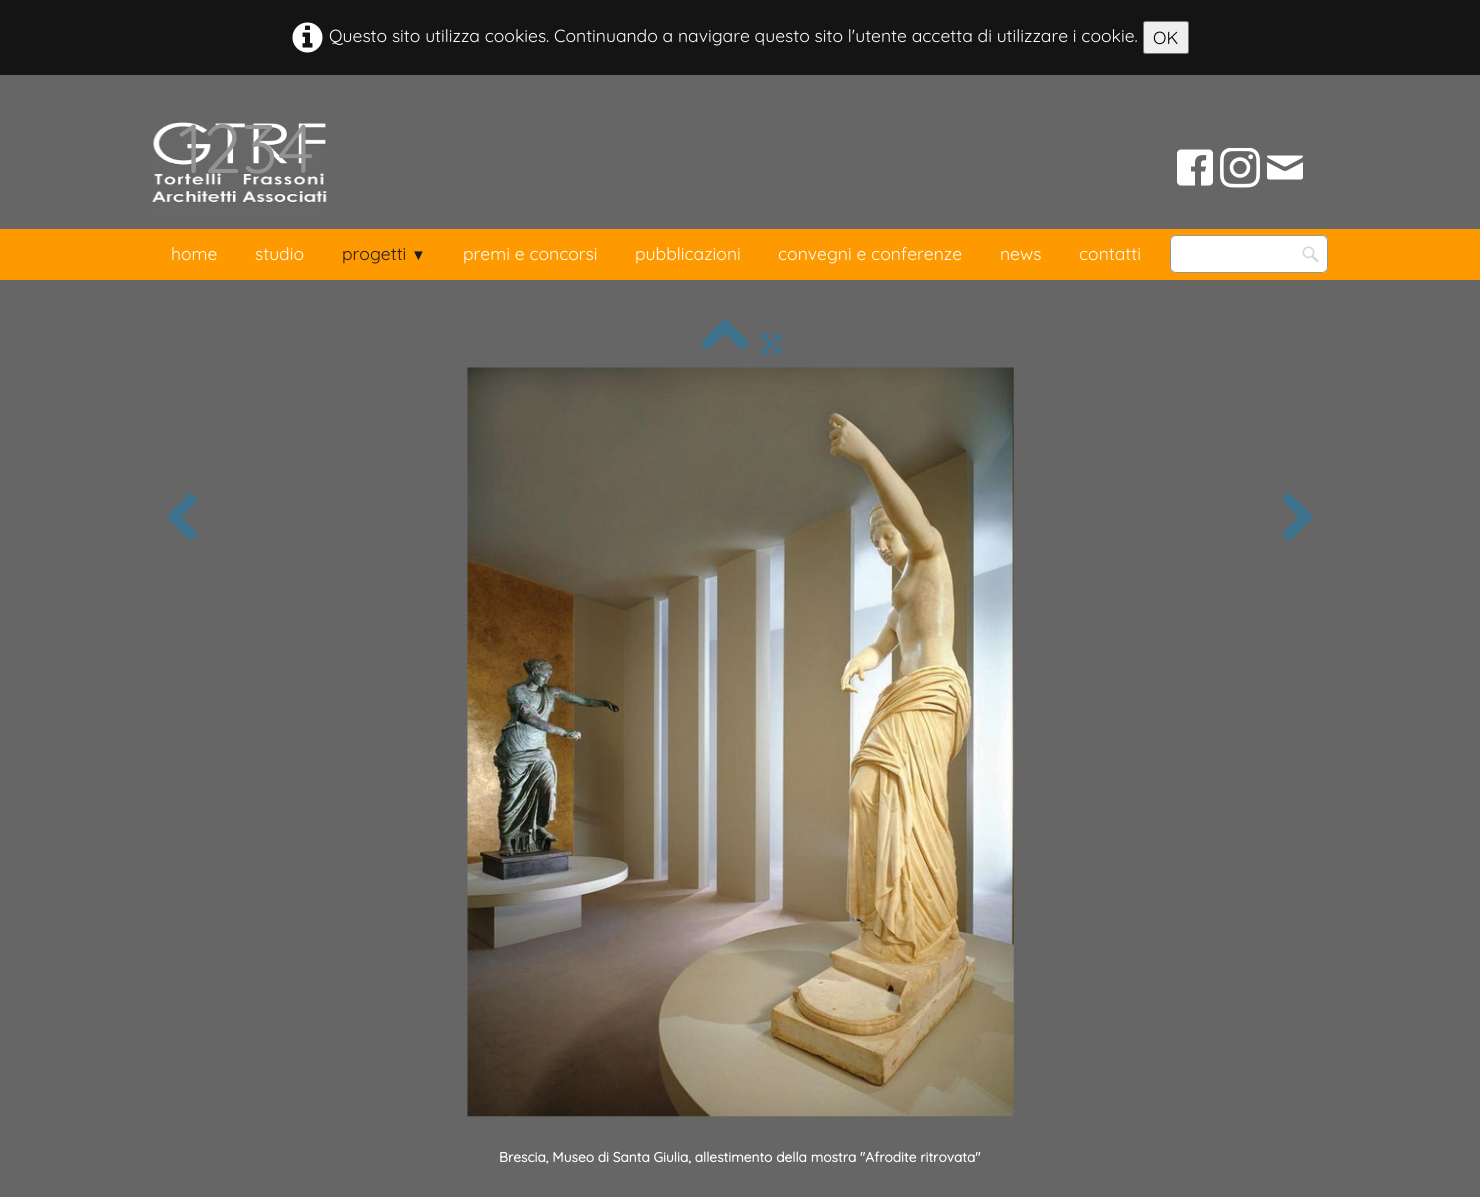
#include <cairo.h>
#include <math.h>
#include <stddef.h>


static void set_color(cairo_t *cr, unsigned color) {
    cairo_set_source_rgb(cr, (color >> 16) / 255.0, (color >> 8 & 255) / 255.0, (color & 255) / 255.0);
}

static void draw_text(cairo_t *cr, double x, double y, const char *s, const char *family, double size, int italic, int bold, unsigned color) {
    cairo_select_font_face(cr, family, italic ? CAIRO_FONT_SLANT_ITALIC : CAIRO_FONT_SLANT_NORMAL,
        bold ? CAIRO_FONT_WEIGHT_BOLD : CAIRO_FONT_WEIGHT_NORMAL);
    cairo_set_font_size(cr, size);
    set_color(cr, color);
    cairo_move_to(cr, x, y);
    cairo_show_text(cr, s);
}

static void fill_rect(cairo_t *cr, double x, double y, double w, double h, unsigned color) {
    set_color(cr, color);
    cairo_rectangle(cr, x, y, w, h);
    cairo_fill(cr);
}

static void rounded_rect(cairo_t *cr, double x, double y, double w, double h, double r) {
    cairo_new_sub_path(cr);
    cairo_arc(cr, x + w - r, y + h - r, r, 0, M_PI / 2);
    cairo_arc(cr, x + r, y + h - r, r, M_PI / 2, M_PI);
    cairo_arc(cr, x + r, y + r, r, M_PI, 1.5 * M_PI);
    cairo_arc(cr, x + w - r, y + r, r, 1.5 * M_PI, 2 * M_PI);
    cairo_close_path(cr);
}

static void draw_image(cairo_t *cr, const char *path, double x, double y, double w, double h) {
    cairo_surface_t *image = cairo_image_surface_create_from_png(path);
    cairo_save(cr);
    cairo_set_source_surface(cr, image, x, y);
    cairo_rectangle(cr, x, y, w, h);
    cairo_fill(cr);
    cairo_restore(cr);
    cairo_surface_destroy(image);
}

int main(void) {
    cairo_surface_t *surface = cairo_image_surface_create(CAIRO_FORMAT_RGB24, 1480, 1197);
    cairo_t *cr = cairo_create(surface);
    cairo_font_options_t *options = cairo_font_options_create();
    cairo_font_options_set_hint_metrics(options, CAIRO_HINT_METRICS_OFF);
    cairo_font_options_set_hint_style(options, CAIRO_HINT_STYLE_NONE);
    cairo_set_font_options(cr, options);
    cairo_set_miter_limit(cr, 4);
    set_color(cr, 0x666666);
    cairo_paint(cr);
    fill_rect(cr, 0, 0, 1480, 75, 0x141414);
    draw_image(cr, "assets/img1.png", 292, 22, 31, 31);
    draw_text(cr, 329, 42, "Questo sito utilizza cookies. Continuando a navigare questo sito l'utente accetta di utilizzare i cookie.", "Quicksand Light", 17.5, 0, 0, 0xFFFFFF);
    set_color(cr, 0xEFEFEF);
    rounded_rect(cr, 1143.5, 21.5, 45, 32, 2);
    cairo_fill_preserve(cr);
    set_color(cr, 0x767676);
    cairo_set_line_width(cr, 1);
    cairo_stroke(cr);
    draw_text(cr, 1153, 44, "OK", "Quicksand Light", 17.5, 0, 0, 0x000000);
    draw_image(cr, "assets/img2.png", 152, 122, 175, 94);
    draw_text(cr, 178, 173, "1234", "Quicksand Light", 69, 0, 0, 0x939393);
    draw_image(cr, "assets/img3.png", 1177, 149, 36, 37);
    draw_image(cr, "assets/img4.png", 1220, 148, 40, 40);
    draw_image(cr, "assets/img5.png", 1267, 155, 36, 25);
    fill_rect(cr, 0, 229, 1480, 51, 0xFF9900);
    draw_text(cr, 171, 260, "home", "Quicksand Light", 17.5, 0, 0, 0xFFFFFF);
    draw_text(cr, 255, 260, "studio", "Quicksand Light", 17.5, 0, 0, 0xFFFFFF);
    draw_text(cr, 342, 260, "progetti", "Quicksand Light", 17.5, 0, 0, 0x1C1C1C);
    draw_text(cr, 411, 260, "▼", "Liberation Serif", 15, 0, 0, 0x1C1C1C);
    draw_text(cr, 463, 260, "premi e concorsi", "Quicksand Light", 17.5, 0, 0, 0xFFFFFF);
    draw_text(cr, 635, 260, "pubblicazioni", "Quicksand Light", 17.5, 0, 0, 0xFFFFFF);
    draw_text(cr, 778, 260, "convegni e conferenze", "Quicksand Light", 17.5, 0, 0, 0xFFFFFF);
    draw_text(cr, 1000, 260, "news", "Quicksand Light", 17.5, 0, 0, 0xFFFFFF);
    draw_text(cr, 1079, 260, "contatti", "Quicksand Light", 17.5, 0, 0, 0xFFFFFF);
    rounded_rect(cr, 1170, 235, 158, 38, 6);
    cairo_fill(cr);
    draw_image(cr, "assets/img6.png", 1302, 246, 17, 17);
    rounded_rect(cr, 1170.5, 235.5, 157, 37, 5.5);
    set_color(cr, 0x969696);
    cairo_stroke(cr);
    draw_image(cr, "assets/img7.png", 701, 319, 48, 31);
    draw_image(cr, "assets/img8.png", 761, 334, 21, 21);
    draw_image(cr, "assets/img9.png", 167, 493, 31, 48);
    draw_image(cr, "assets/img10.png", 467, 367, 547, 750);
    draw_image(cr, "assets/img11.png", 1282, 493, 31, 48);
    draw_text(cr, 499, 1162, "Brescia, Museo di Santa Giulia, allestimento della mostra \"Afrodite ritrovata\"", "Quicksand", 13.75, 0, 1, 0xFFFFFF);
    cairo_surface_write_to_png(surface, "output.png");
    cairo_font_options_destroy(options);
    cairo_destroy(cr);
    cairo_surface_destroy(surface);
    return 0;
}
